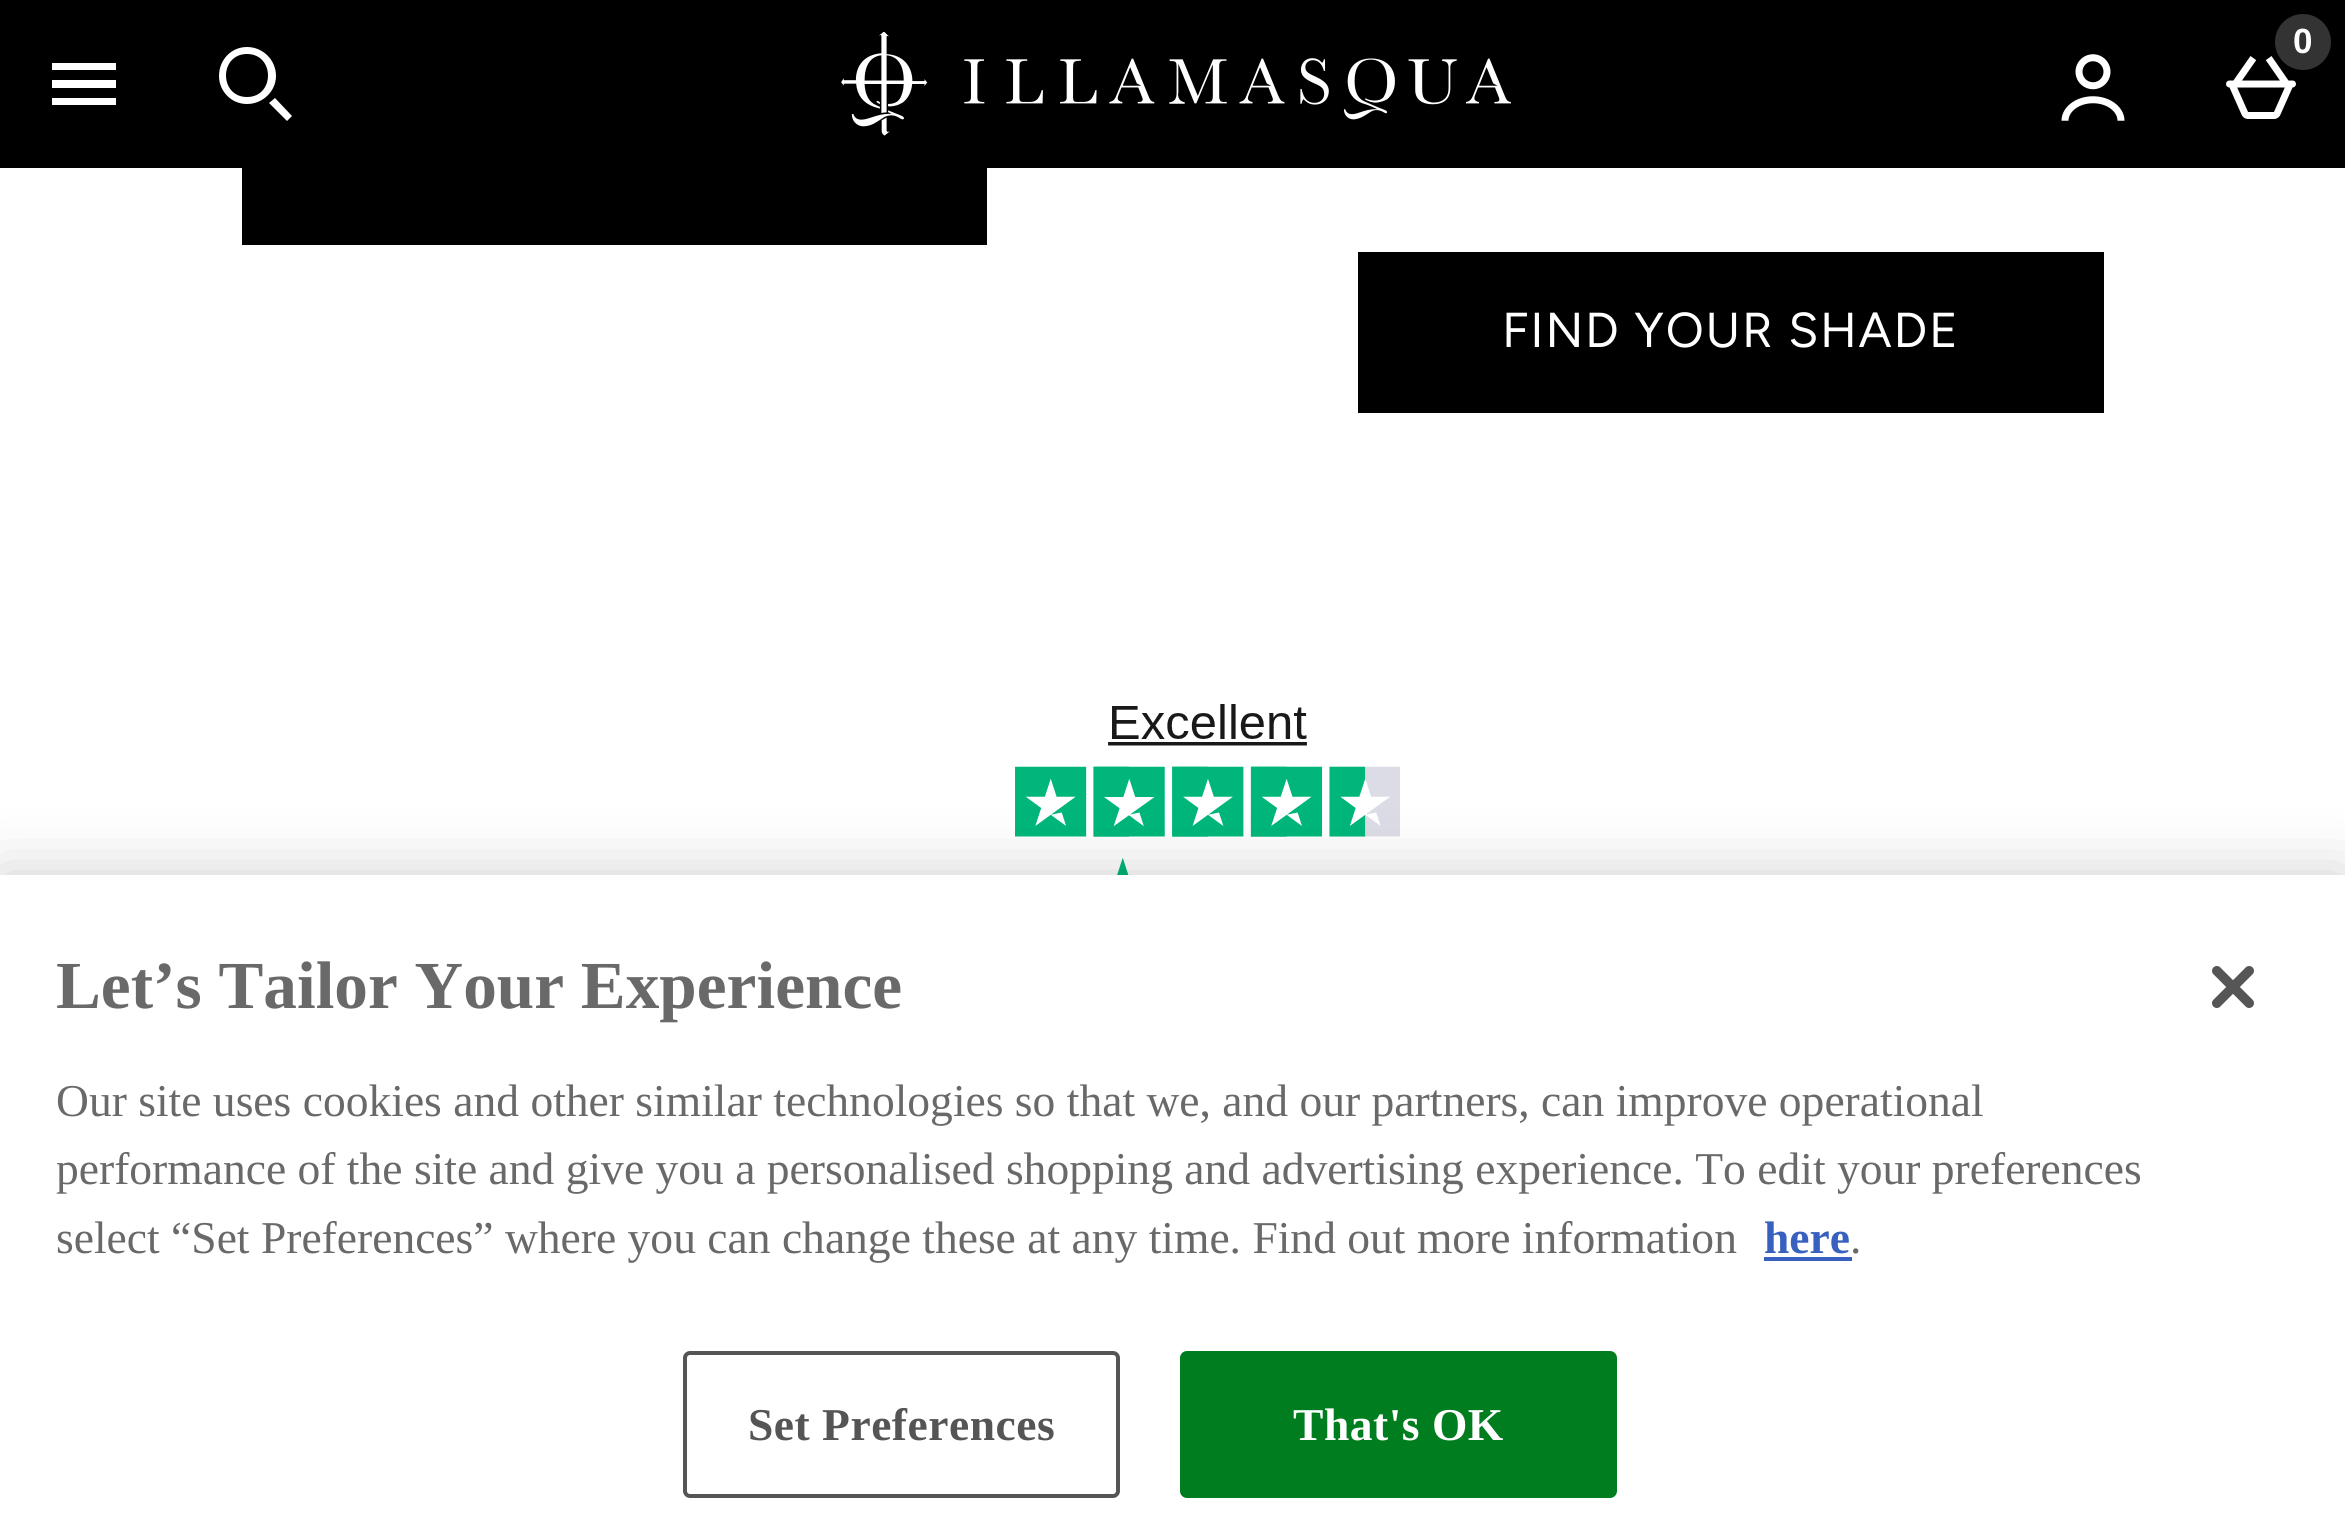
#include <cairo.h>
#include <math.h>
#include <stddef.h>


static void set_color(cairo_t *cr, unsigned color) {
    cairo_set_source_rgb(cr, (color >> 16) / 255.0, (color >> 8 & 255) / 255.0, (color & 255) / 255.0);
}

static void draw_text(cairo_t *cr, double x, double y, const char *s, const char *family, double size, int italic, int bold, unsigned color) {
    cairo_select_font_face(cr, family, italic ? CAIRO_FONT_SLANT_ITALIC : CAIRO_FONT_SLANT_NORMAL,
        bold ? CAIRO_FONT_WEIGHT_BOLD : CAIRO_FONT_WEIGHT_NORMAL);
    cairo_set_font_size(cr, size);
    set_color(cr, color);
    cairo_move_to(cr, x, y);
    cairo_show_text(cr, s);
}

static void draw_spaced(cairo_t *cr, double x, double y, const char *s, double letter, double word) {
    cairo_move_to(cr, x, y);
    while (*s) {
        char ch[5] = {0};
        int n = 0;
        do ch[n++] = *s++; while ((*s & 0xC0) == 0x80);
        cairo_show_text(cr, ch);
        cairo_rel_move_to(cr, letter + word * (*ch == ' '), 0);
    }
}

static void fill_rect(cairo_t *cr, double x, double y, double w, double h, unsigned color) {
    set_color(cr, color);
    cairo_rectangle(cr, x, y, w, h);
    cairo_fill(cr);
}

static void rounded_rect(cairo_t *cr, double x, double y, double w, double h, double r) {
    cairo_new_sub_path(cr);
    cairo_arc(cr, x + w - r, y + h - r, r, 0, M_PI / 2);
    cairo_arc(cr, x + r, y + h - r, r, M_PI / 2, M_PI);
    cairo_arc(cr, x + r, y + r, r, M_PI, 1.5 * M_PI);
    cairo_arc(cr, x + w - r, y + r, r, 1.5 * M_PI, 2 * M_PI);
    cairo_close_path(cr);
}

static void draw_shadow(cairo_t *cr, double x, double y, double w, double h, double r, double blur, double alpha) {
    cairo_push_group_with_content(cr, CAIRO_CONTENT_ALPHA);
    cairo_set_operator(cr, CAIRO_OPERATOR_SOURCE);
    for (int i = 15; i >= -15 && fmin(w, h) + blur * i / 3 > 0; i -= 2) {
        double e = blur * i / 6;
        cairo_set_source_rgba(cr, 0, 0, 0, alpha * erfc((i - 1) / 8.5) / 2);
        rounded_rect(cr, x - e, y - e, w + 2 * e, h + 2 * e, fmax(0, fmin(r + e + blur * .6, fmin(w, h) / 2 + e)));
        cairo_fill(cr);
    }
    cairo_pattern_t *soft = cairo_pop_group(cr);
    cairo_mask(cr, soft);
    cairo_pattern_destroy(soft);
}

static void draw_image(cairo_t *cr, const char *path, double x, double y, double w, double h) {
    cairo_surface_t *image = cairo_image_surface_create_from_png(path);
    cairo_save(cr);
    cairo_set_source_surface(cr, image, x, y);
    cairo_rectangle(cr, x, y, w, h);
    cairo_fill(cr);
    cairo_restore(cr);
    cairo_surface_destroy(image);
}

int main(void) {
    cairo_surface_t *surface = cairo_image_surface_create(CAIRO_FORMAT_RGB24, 2345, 1531);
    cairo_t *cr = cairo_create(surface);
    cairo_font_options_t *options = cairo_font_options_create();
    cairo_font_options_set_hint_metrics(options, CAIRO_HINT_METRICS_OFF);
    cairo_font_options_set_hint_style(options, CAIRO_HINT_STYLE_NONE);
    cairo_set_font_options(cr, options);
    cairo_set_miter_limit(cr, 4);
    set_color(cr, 0xFFFFFF);
    cairo_paint(cr);
    fill_rect(cr, 0, 0, 2345, 168, 0x000000);
    set_color(cr, 0xFFFFFF);
    cairo_new_path(cr);
    cairo_move_to(cr, 52, 80);
    cairo_line_to(cr, 116, 80);
    cairo_line_to(cr, 116, 88);
    cairo_line_to(cr, 52, 88);
    cairo_close_path(cr);
    cairo_move_to(cr, 52, 63);
    cairo_line_to(cr, 116, 63);
    cairo_line_to(cr, 116, 70);
    cairo_line_to(cr, 52, 70);
    cairo_close_path(cr);
    cairo_move_to(cr, 52, 98);
    cairo_line_to(cr, 116, 98);
    cairo_line_to(cr, 116, 105);
    cairo_line_to(cr, 52, 105);
    cairo_close_path(cr);
    cairo_fill(cr);
    cairo_new_path(cr);
    cairo_move_to(cr, 247, 97);
    cairo_curve_to(cr, 275, 97, 275, 54, 247, 54);
    cairo_curve_to(cr, 219, 54, 219, 97, 247, 97);
    cairo_close_path(cr);
    cairo_move_to(cr, 247, 104);
    cairo_curve_to(cr, 231, 104, 219, 91, 219, 76);
    cairo_curve_to(cr, 219, 60, 231, 47, 247, 47);
    cairo_curve_to(cr, 263, 47, 276, 60, 276, 76);
    cairo_curve_to(cr, 276, 91, 263, 104, 247, 104);
    cairo_close_path(cr);
    cairo_move_to(cr, 292, 116);
    cairo_line_to(cr, 287, 121);
    cairo_line_to(cr, 269, 103);
    cairo_line_to(cr, 275, 98);
    cairo_close_path(cr);
    cairo_fill(cr);
    draw_image(cr, "assets/img1.png", 841, 32, 670, 104);
    draw_image(cr, "assets/img2.png", 2061, 54, 64, 67);
    draw_image(cr, "assets/img3.png", 2226, 56, 70, 63);
    set_color(cr, 0x333333);
    cairo_arc(cr, 2303, 42, 28, 0, 2 * M_PI);
    cairo_fill(cr);
    draw_text(cr, 2293, 53, "0", "Liberation Sans", 35, 0, 1, 0xFFFFFF);
    fill_rect(cr, 242, 168, 745, 77, 0x000000);
    fill_rect(cr, 1358, 252, 746, 161, 0x000000);
    cairo_select_font_face(cr, "Figtree Light", CAIRO_FONT_SLANT_NORMAL, CAIRO_FONT_WEIGHT_NORMAL);
    cairo_set_font_size(cr, 49);
    set_color(cr, 0xFFFFFF);
    draw_spaced(cr, 1502, 347, "FIND YOUR SHADE", 1.75, 0);
    draw_image(cr, "assets/img4.png", 1015, 704, 385, 171);
    set_color(cr, 0x000000);
    draw_shadow(cr, 0, 875, 2345, 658, 0, 31.5, 0.2);
    fill_rect(cr, 0, 875, 2345, 656, 0xFFFFFF);
    draw_text(cr, 56, 1008, "Let’s Tailor Your Experience", "Liberation Serif", 67.25, 0, 1, 0x696969);
    draw_text(cr, 56, 1116, "Our site uses cookies and other similar technologies so that we, and our partners, can improve operational", "Liberation Serif", 45.55, 0, 0, 0x696969);
    draw_text(cr, 56, 1184, "performance of the site and give you a personalised shopping and advertising experience. To edit your preferences", "Liberation Serif", 45.55, 0, 0, 0x696969);
    draw_text(cr, 56, 1253, "select “Set Preferences” where you can change these at any time. Find out more information", "Liberation Serif", 45.55, 0, 0, 0x696969);
    draw_text(cr, 1764, 1253, "here", "Liberation Serif", 45.55, 0, 1, 0x3860BE);
    fill_rect(cr, 1764, 1257, 88, 4, 0x3860BE);
    draw_text(cr, 1850, 1253, ".", "Liberation Serif", 45.55, 0, 0, 0x696969);
    rounded_rect(cr, 685, 1353, 433, 143, 5);
    set_color(cr, 0x555555);
    cairo_set_line_width(cr, 4);
    cairo_stroke(cr);
    cairo_select_font_face(cr, "Liberation Serif", CAIRO_FONT_SLANT_NORMAL, CAIRO_FONT_WEIGHT_BOLD);
    draw_spaced(cr, 748, 1440, "Set Preferences", 0.5, 0);
    set_color(cr, 0x007D1E);
    rounded_rect(cr, 1182, 1353, 433, 143, 5);
    cairo_fill_preserve(cr);
    cairo_stroke(cr);
    set_color(cr, 0xFFFFFF);
    draw_spaced(cr, 1293, 1440, "That's OK", 0.5, 0);
    draw_image(cr, "assets/img5.png", 2212, 966, 42, 42);
    cairo_surface_write_to_png(surface, "output.png");
    cairo_font_options_destroy(options);
    cairo_destroy(cr);
    cairo_surface_destroy(surface);
    return 0;
}
